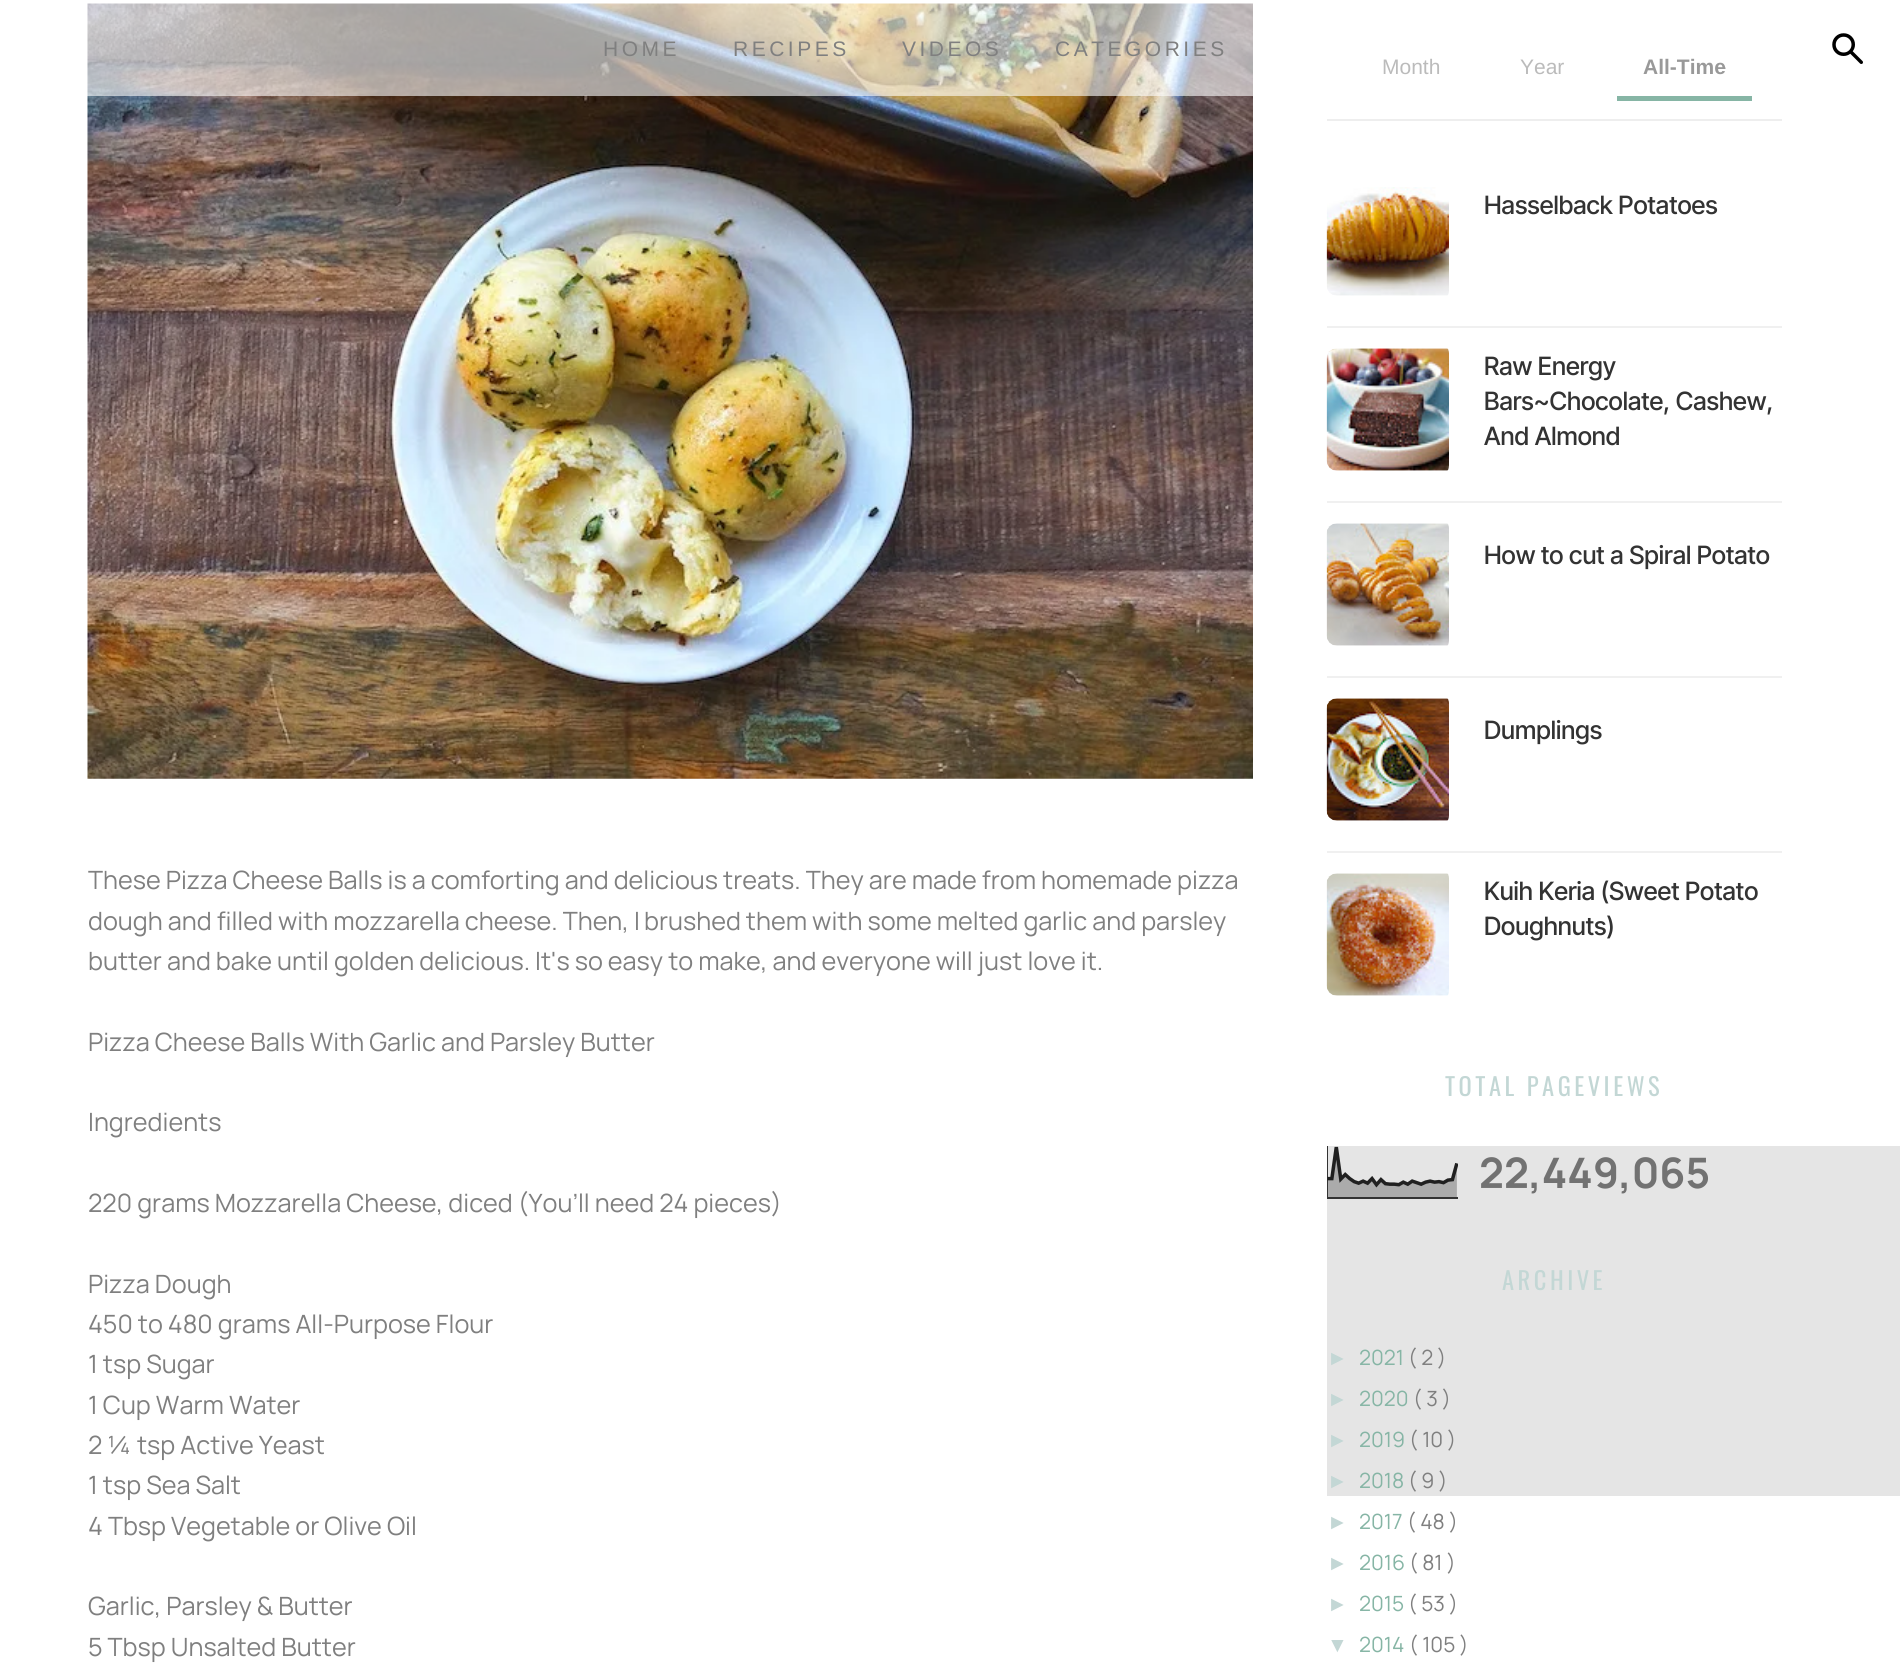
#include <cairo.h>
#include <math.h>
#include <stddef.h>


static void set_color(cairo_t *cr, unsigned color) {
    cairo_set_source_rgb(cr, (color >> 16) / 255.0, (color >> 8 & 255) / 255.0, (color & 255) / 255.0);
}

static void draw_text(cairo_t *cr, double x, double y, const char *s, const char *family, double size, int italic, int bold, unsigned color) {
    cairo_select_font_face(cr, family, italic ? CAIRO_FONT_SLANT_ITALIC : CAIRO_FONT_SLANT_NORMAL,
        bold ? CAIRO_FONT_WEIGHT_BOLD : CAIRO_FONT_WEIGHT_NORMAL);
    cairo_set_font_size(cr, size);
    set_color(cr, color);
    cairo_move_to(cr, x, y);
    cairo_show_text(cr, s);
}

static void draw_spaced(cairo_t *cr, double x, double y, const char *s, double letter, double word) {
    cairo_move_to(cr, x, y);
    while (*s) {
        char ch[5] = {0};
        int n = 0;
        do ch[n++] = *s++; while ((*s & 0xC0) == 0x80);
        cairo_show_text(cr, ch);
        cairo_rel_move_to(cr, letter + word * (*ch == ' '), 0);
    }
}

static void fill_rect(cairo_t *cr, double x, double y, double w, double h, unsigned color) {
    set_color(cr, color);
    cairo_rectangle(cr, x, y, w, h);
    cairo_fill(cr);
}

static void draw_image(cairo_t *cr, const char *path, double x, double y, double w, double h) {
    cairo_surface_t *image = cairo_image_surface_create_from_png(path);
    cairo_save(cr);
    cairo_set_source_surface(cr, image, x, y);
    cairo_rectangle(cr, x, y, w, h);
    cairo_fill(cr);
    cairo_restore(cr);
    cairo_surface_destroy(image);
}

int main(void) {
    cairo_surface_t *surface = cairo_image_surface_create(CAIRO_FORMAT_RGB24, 1900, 1677);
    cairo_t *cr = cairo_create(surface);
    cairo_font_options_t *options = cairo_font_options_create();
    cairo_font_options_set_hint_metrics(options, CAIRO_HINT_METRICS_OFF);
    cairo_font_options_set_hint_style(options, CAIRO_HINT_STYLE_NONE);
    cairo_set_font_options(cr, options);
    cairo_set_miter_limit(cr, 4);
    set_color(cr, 0xFFFFFF);
    cairo_paint(cr);
    draw_image(cr, "assets/img2.png", 87, 3, 1166, 776);
    draw_text(cr, 1382, 74, "Month", "Liberation Sans", 21, 0, 0, 0x555555);
    draw_text(cr, 1520, 74, "Year", "Liberation Sans", 21, 0, 0, 0x555555);
    draw_text(cr, 1643, 74, "All-Time", "Liberation Sans", 21, 0, 1, 0x000000);
    cairo_set_source_rgba(cr, 1, 1, 1, 0.6);
    cairo_rectangle(cr, 87, 3, 1638, 93);
    cairo_fill(cr);
    cairo_select_font_face(cr, "Liberation Sans", CAIRO_FONT_SLANT_NORMAL, CAIRO_FONT_WEIGHT_NORMAL);
    set_color(cr, 0x7F7F7F);
    draw_spaced(cr, 603, 56, "HOME", 3.5, 0);
    draw_spaced(cr, 733, 56, "RECIPES", 3.5, 0);
    draw_spaced(cr, 902, 56, "VIDEOS", 3.5, 0);
    draw_spaced(cr, 1055, 56, "CATEGORIES", 3.5, 0);
    draw_image(cr, "assets/img1.png", 1832, 33, 31, 31);
    draw_text(cr, 88, 889, "These Pizza Cheese Balls is a comforting and delicious treats. They are made from homemade pizza", "Manrope", 25.2, 0, 0, 0x7F7F7F);
    draw_text(cr, 88, 930, "dough and filled with mozzarella cheese. Then, I", "Manrope", 25.2, 0, 0, 0x7F7F7F);
    draw_text(cr, 644, 930, "brushed them with some melted garlic and parsley", "Manrope", 25.2, 0, 0, 0x7F7F7F);
    draw_text(cr, 88, 970, "butter and bake until golden delicious. It's so easy to make, and everyone will just love it.", "Manrope", 25.2, 0, 0, 0x7F7F7F);
    draw_text(cr, 88, 1051, "Pizza Cheese Balls With Garlic and Parsley Butter", "Manrope", 25.2, 0, 0, 0x7F7F7F);
    draw_text(cr, 88, 1131, "Ingredients", "Manrope", 25.2, 0, 0, 0x7F7F7F);
    draw_text(cr, 88, 1212, "220 grams Mozzarella Cheese, diced (You’ll need 24 pieces)", "Manrope", 25.2, 0, 0, 0x7F7F7F);
    draw_text(cr, 88, 1293, "Pizza Dough", "Manrope", 25.2, 0, 0, 0x7F7F7F);
    draw_text(cr, 88, 1333, "450 to 480 grams All-Purpose Flour", "Manrope", 25.2, 0, 0, 0x7F7F7F);
    draw_text(cr, 88, 1373, "1 tsp Sugar", "Manrope", 25.2, 0, 0, 0x7F7F7F);
    draw_text(cr, 88, 1414, "1 Cup Warm Water", "Manrope", 25.2, 0, 0, 0x7F7F7F);
    draw_text(cr, 88, 1454, "2 ¼ tsp Active Yeast", "Manrope", 25.2, 0, 0, 0x7F7F7F);
    draw_text(cr, 88, 1494, "1 tsp Sea Salt", "Manrope", 25.2, 0, 0, 0x7F7F7F);
    draw_text(cr, 88, 1535, "4 Tbsp Vegetable or Olive Oil", "Manrope", 25.2, 0, 0, 0x7F7F7F);
    draw_text(cr, 88, 1615, "Garlic, Parsley & Butter", "Manrope", 25.2, 0, 0, 0x7F7F7F);
    draw_text(cr, 88, 1656, "5 Tbsp Unsalted Butter", "Manrope", 25.2, 0, 0, 0x7F7F7F);
    fill_rect(cr, 1327, 119, 455, 2, 0xEEEEEE);
    fill_rect(cr, 1617, 96, 135, 5, 0x86B5A5);
    fill_rect(cr, 1327, 326, 455, 2, 0xF0F0F0);
    draw_image(cr, "assets/img3.png", 1326, 187, 123, 109);
    draw_text(cr, 1484, 214, "Hasselback Potatoes", "Inter Tight Medium", 25.2, 0, 0, 0x333333);
    fill_rect(cr, 1327, 501, 455, 2, 0xF0F0F0);
    draw_image(cr, "assets/img4.png", 1326, 348, 123, 123);
    draw_text(cr, 1484, 375, "Raw Energy", "Inter Tight Medium", 25.2, 0, 0, 0x333333);
    draw_text(cr, 1484, 410, "Bars~Chocolate, Cashew,", "Inter Tight Medium", 25.2, 0, 0, 0x333333);
    draw_text(cr, 1484, 445, "And Almond", "Inter Tight Medium", 25.2, 0, 0, 0x333333);
    fill_rect(cr, 1327, 676, 455, 2, 0xF0F0F0);
    draw_image(cr, "assets/img5.png", 1326, 523, 123, 123);
    draw_text(cr, 1484, 564, "How to cut a Spiral Potato", "Inter Tight Medium", 25.2, 0, 0, 0x333333);
    fill_rect(cr, 1327, 851, 455, 2, 0xF0F0F0);
    draw_image(cr, "assets/img6.png", 1326, 698, 123, 123);
    draw_text(cr, 1484, 739, "Dumplings", "Inter Tight Medium", 25.2, 0, 0, 0x333333);
    draw_image(cr, "assets/img7.png", 1326, 873, 123, 123);
    draw_text(cr, 1484, 900, "Kuih Keria (Sweet Potato", "Inter Tight Medium", 25.2, 0, 0, 0x333333);
    draw_text(cr, 1484, 935, "Doughnuts)", "Inter Tight Medium", 25.2, 0, 0, 0x333333);
    cairo_select_font_face(cr, "Oswald", CAIRO_FONT_SLANT_NORMAL, CAIRO_FONT_WEIGHT_NORMAL);
    cairo_set_font_size(cr, 24.5);
    set_color(cr, 0xC3D7D5);
    draw_spaced(cr, 1445, 1096, "TOTAL PAGEVIEWS", 3.5, 0);
    draw_text(cr, 1479, 1188, "22,449,065", "Manrope", 42, 0, 1, 0x7F7F7F);
    draw_image(cr, "assets/img8.png", 1327, 1146, 573, 350);
    cairo_select_font_face(cr, "Oswald", CAIRO_FONT_SLANT_NORMAL, CAIRO_FONT_WEIGHT_NORMAL);
    cairo_set_font_size(cr, 24.5);
    set_color(cr, 0xC3D7D5);
    draw_spaced(cr, 1502, 1290, "ARCHIVE", 3.5, 0);
    draw_text(cr, 1327, 1365, "►", "Liberation Sans", 21, 0, 0, 0xC3D7D5);
    draw_text(cr, 1359, 1365, "2021", "Manrope", 21, 0, 0, 0x86B5A5);
    draw_text(cr, 1408, 1365, "( 2 )", "Manrope", 21, 0, 0, 0x7F7F7F);
    draw_text(cr, 1327, 1406, "►", "Liberation Sans", 21, 0, 0, 0xC3D7D5);
    draw_text(cr, 1359, 1406, "2020", "Manrope", 21, 0, 0, 0x86B5A5);
    draw_text(cr, 1413, 1406, "( 3 )", "Manrope", 21, 0, 0, 0x7F7F7F);
    draw_text(cr, 1327, 1447, "►", "Liberation Sans", 21, 0, 0, 0xC3D7D5);
    draw_text(cr, 1359, 1447, "2019", "Manrope", 21, 0, 0, 0x86B5A5);
    draw_text(cr, 1409, 1447, "( 10 )", "Manrope", 21, 0, 0, 0x7F7F7F);
    draw_text(cr, 1327, 1488, "►", "Liberation Sans", 21, 0, 0, 0xC3D7D5);
    draw_text(cr, 1359, 1488, "2018", "Manrope", 21, 0, 0, 0x86B5A5);
    draw_text(cr, 1408, 1488, "( 9 )", "Manrope", 21, 0, 0, 0x7F7F7F);
    draw_text(cr, 1327, 1529, "►", "Liberation Sans", 21, 0, 0, 0xC3D7D5);
    draw_text(cr, 1359, 1529, "2017", "Manrope", 21, 0, 0, 0x86B5A5);
    draw_text(cr, 1407, 1529, "( 48 )", "Manrope", 21, 0, 0, 0x7F7F7F);
    draw_text(cr, 1327, 1570, "►", "Liberation Sans", 21, 0, 0, 0xC3D7D5);
    draw_text(cr, 1359, 1570, "2016", "Manrope", 21, 0, 0, 0x86B5A5);
    draw_text(cr, 1409, 1570, "( 81 )", "Manrope", 21, 0, 0, 0x7F7F7F);
    draw_text(cr, 1327, 1611, "►", "Liberation Sans", 21, 0, 0, 0xC3D7D5);
    draw_text(cr, 1359, 1611, "2015", "Manrope", 21, 0, 0, 0x86B5A5);
    draw_text(cr, 1408, 1611, "( 53 )", "Manrope", 21, 0, 0, 0x7F7F7F);
    draw_text(cr, 1327, 1652, "▼", "Liberation Sans", 21, 0, 0, 0xC3D7D5);
    draw_text(cr, 1359, 1652, "2014", "Manrope", 21, 0, 0, 0x86B5A5);
    draw_text(cr, 1409, 1652, "( 105 )", "Manrope", 21, 0, 0, 0x7F7F7F);
    cairo_surface_write_to_png(surface, "output.png");
    cairo_font_options_destroy(options);
    cairo_destroy(cr);
    cairo_surface_destroy(surface);
    return 0;
}
